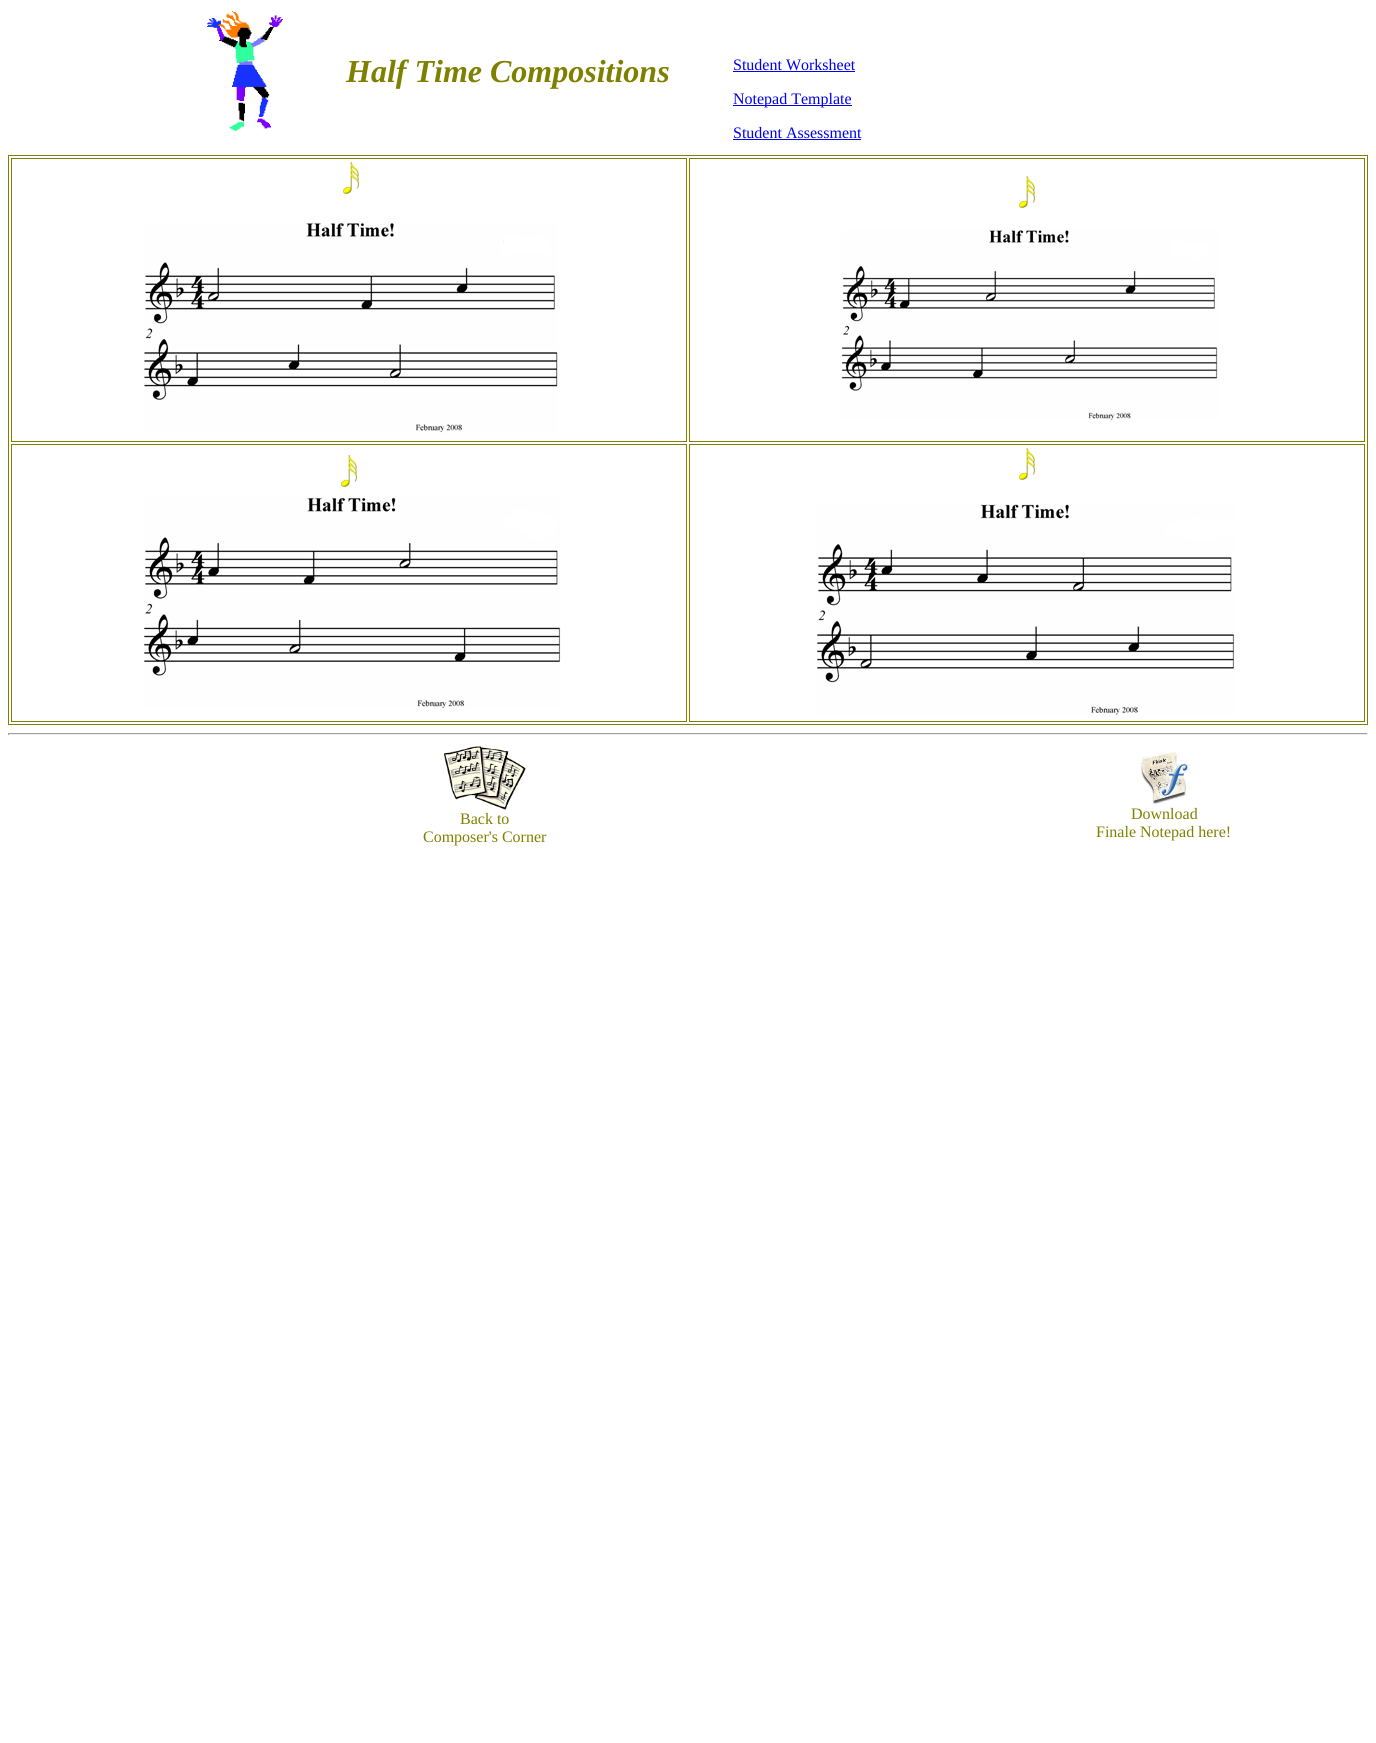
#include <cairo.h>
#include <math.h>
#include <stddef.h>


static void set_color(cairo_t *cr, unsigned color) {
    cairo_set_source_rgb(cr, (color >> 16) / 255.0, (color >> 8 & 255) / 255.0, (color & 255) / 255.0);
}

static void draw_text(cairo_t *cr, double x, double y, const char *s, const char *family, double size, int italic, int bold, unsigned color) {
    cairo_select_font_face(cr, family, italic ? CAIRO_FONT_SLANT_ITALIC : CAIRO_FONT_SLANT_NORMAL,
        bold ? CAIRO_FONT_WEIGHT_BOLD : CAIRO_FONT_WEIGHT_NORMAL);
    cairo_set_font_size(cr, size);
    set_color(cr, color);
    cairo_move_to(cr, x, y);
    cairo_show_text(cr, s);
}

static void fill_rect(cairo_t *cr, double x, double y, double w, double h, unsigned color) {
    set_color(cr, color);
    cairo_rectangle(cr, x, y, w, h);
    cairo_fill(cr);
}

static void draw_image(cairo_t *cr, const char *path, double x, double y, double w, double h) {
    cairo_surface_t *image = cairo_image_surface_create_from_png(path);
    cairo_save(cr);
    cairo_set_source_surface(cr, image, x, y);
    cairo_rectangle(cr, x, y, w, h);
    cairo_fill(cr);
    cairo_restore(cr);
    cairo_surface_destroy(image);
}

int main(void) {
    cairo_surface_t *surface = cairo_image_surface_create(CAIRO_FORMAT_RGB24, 1376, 1743);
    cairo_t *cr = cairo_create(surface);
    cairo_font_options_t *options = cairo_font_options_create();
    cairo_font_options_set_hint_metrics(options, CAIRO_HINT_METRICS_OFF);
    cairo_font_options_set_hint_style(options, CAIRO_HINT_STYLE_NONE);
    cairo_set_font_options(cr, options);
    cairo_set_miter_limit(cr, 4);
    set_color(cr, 0xFFFFFF);
    cairo_paint(cr);
    draw_image(cr, "assets/img1.png", 207, 11, 76, 120);
    draw_text(cr, 346, 82, "Half Time Compositions", "Liberation Serif", 32, 1, 1, 0x808000);
    draw_text(cr, 733, 70, "Student Worksheet", "Liberation Serif", 16, 0, 0, 0x0000EE);
    fill_rect(cr, 733, 71, 122, 1, 0x0000EE);
    fill_rect(cr, 733, 105, 119, 1, 0x0000EE);
    draw_text(cr, 733, 104, "Notepad Template", "Liberation Serif", 16, 0, 0, 0x0000EE);
    draw_text(cr, 733, 138, "Student Assessment", "Liberation Serif", 16, 0, 0, 0x0000EE);
    fill_rect(cr, 733, 139, 128, 1, 0x0000EE);
    cairo_rectangle(cr, 8.5, 155.5, 1359, 569);
    set_color(cr, 0x808000);
    cairo_set_line_width(cr, 1);
    cairo_stroke(cr);
    cairo_rectangle(cr, 11.5, 158.5, 675, 283);
    cairo_stroke(cr);
    draw_image(cr, "assets/img2.png", 343, 162, 16, 32);
    draw_image(cr, "assets/img3.png", 144, 223, 414, 210);
    cairo_rectangle(cr, 689.5, 158.5, 675, 283);
    cairo_stroke(cr);
    draw_image(cr, "assets/img2.png", 1019, 176, 16, 32);
    draw_image(cr, "assets/img4.png", 841, 230, 377, 190);
    cairo_rectangle(cr, 11.5, 444.5, 675, 277);
    cairo_stroke(cr);
    draw_image(cr, "assets/img2.png", 341, 455, 16, 32);
    draw_image(cr, "assets/img5.png", 144, 497, 417, 211);
    cairo_rectangle(cr, 689.5, 444.5, 675, 277);
    cairo_stroke(cr);
    draw_image(cr, "assets/img2.png", 1019, 448, 16, 32);
    draw_image(cr, "assets/img6.png", 817, 504, 417, 211);
    fill_rect(cr, 8, 733, 1360, 1, 0x9F9F9F);
    fill_rect(cr, 1367, 733, 1, 2, 0xEEEEEE);
    fill_rect(cr, 8, 734, 1360, 1, 0xEEEEEE);
    fill_rect(cr, 8, 733, 1, 2, 0x9F9F9F);
    draw_image(cr, "assets/img7.png", 444, 746, 82, 64);
    draw_text(cr, 460, 824, "Back to", "Liberation Serif", 16, 0, 0, 0x808000);
    draw_text(cr, 423, 842, "Composer's Corner", "Liberation Serif", 16, 0, 0, 0x808000);
    draw_image(cr, "assets/img8.png", 1141, 752, 49, 53);
    draw_text(cr, 1131, 819, "Download", "Liberation Serif", 16, 0, 0, 0x808000);
    draw_text(cr, 1096, 837, "Finale Notepad here!", "Liberation Serif", 16, 0, 0, 0x808000);
    cairo_surface_write_to_png(surface, "output.png");
    cairo_font_options_destroy(options);
    cairo_destroy(cr);
    cairo_surface_destroy(surface);
    return 0;
}
